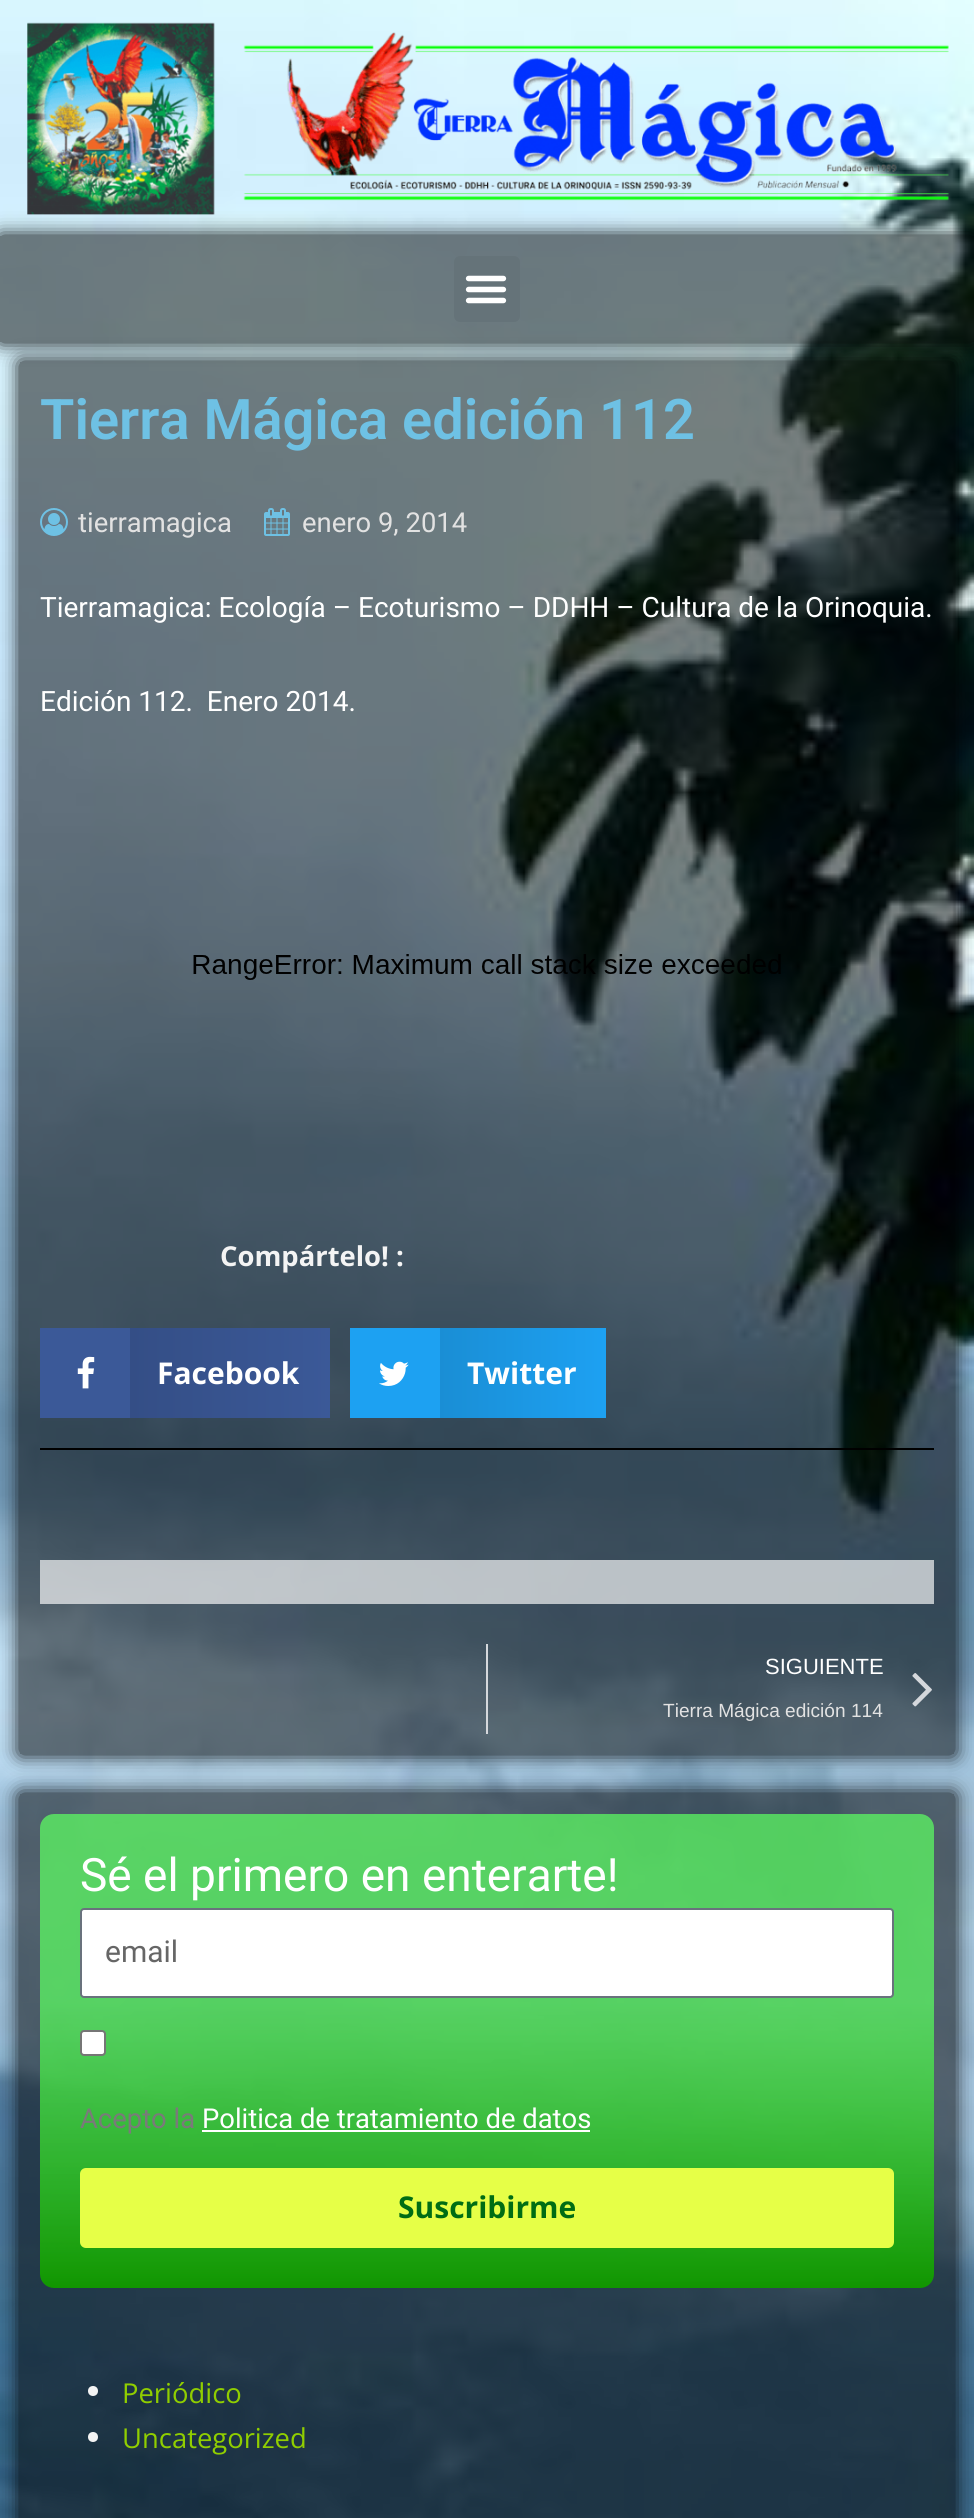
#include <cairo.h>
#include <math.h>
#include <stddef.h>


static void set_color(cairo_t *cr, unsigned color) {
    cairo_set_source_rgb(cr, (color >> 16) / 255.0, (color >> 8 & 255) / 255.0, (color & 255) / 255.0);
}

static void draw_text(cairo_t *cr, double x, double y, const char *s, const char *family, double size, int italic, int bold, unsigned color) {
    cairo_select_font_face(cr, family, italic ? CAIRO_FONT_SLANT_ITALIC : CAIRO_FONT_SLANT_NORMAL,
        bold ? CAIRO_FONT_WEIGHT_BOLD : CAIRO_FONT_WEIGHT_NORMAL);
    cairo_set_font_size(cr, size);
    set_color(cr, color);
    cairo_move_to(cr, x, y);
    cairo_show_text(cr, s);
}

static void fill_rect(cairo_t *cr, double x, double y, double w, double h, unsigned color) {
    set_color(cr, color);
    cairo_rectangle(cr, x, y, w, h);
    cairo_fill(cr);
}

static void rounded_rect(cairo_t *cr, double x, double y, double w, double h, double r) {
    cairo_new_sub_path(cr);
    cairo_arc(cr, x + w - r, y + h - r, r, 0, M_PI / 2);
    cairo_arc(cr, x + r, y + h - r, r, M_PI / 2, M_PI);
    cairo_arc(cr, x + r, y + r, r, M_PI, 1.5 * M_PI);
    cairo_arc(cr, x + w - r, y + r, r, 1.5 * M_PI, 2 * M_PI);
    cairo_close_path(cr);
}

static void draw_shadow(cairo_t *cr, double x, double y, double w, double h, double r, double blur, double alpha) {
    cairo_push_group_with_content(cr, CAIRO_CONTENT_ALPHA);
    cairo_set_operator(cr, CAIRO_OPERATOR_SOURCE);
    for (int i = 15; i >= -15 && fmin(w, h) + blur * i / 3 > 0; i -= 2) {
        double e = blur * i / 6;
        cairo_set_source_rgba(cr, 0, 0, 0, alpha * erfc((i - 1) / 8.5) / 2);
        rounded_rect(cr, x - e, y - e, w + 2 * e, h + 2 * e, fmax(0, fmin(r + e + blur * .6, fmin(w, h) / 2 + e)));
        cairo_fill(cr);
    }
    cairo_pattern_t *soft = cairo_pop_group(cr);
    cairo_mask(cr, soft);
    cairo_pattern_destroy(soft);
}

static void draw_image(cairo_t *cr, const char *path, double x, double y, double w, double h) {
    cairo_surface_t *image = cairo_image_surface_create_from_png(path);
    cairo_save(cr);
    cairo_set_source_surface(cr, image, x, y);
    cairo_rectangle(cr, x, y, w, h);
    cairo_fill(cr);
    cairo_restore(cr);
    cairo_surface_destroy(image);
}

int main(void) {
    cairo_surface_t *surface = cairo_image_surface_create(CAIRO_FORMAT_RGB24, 974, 2518);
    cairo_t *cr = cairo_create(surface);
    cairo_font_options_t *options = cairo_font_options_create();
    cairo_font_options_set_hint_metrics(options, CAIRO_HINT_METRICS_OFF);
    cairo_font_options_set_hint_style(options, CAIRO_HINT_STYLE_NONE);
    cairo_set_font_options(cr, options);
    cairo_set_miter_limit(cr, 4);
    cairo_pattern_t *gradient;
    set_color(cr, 0xFFFFFF);
    cairo_paint(cr);
    draw_image(cr, "assets/img1.png", 0, 0, 974, 2518);
    draw_image(cr, "assets/img2.png", 27, 22, 922, 193);
    cairo_save(cr);
    cairo_set_fill_rule(cr, CAIRO_FILL_RULE_EVEN_ODD);
    cairo_new_path(cr);
    cairo_move_to(cr, 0, 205);
    cairo_line_to(cr, 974, 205);
    cairo_line_to(cr, 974, 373);
    cairo_line_to(cr, 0, 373);
    cairo_close_path(cr);
    cairo_move_to(cr, 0, 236);
    cairo_line_to(cr, 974, 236);
    cairo_line_to(cr, 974, 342);
    cairo_line_to(cr, 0, 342);
    cairo_close_path(cr);
    cairo_clip(cr);
    set_color(cr, 0x000000);
    draw_shadow(cr, 0, 236, 974, 106, 0, 10, 1);
    cairo_restore(cr);
    cairo_set_source_rgba(cr, 0, 0, 0, 0.5);
    cairo_rectangle(cr, 0, 236, 974, 106);
    cairo_fill(cr);
    set_color(cr, 0x657379);
    rounded_rect(cr, 454, 256, 66, 66, 6);
    cairo_fill(cr);
    draw_image(cr, "assets/img3.png", 465, 275, 42, 29);
    cairo_save(cr);
    cairo_set_fill_rule(cr, CAIRO_FILL_RULE_EVEN_ODD);
    cairo_new_path(cr);
    cairo_move_to(cr, 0, 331);
    cairo_line_to(cr, 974, 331);
    cairo_line_to(cr, 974, 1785);
    cairo_line_to(cr, 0, 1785);
    cairo_close_path(cr);
    cairo_move_to(cr, 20, 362);
    cairo_line_to(cr, 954, 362);
    cairo_line_to(cr, 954, 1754);
    cairo_line_to(cr, 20, 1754);
    cairo_close_path(cr);
    cairo_clip(cr);
    set_color(cr, 0x000000);
    draw_shadow(cr, 20, 362, 934, 1392, 0, 10, 1);
    cairo_restore(cr);
    cairo_set_source_rgba(cr, 0, 0, 0, 0.5);
    cairo_rectangle(cr, 20, 362, 934, 1392);
    cairo_fill(cr);
    draw_text(cr, 40, 439, "Tierra Mágica edición 112", "Roboto SemiBold", 56, 0, 0, 0x6EC1E4);
    draw_image(cr, "assets/img4.png", 40, 508, 28, 28);
    draw_text(cr, 78, 532, "tierramagica", "Roboto", 27.4, 0, 0, 0xE2E2E2);
    draw_image(cr, "assets/img5.png", 264, 508, 26, 28);
    draw_text(cr, 302, 532, "enero 9, 2014", "Roboto", 27.4, 0, 0, 0xE2E2E2);
    draw_text(cr, 40, 617, "Tierramagica: Ecología – Ecoturismo – DDHH – Cultura de la Orinoquia.", "Roboto", 28, 0, 0, 0xFFFFFF);
    draw_text(cr, 40, 711, "Edición 112.  Enero 2014.", "Roboto", 28, 0, 0, 0xFFFFFF);
    draw_image(cr, "assets/img6.png", 193, 954, 588, 26);
    draw_text(cr, 220, 1266, "Compártelo! :", "Open Sans", 27.4, 0, 1, 0xF4F4F4);
    fill_rect(cr, 40, 1328, 90, 90, 0x3B5998);
    draw_image(cr, "assets/img7.png", 77, 1356, 18, 33);
    gradient = cairo_pattern_create_linear(130, 1373, 330, 1373);
    cairo_pattern_add_color_stop_rgba(gradient, 0, 0.204, 0.306, 0.525, 1);
    cairo_pattern_add_color_stop_rgba(gradient, 1, 0.231, 0.349, 0.596, 1);
    cairo_set_source(cr, gradient);
    cairo_pattern_destroy(gradient);
    cairo_rectangle(cr, 130, 1328, 200, 90);
    cairo_fill(cr);
    draw_text(cr, 157, 1384, "Facebook", "Open Sans", 30, 0, 1, 0xFFFFFF);
    fill_rect(cr, 350, 1328, 90, 90, 0x1DA1F2);
    draw_image(cr, "assets/img8.png", 379, 1361, 30, 25);
    gradient = cairo_pattern_create_linear(440, 1373, 606, 1373);
    cairo_pattern_add_color_stop_rgba(gradient, 0, 0.102, 0.557, 0.835, 1);
    cairo_pattern_add_color_stop_rgba(gradient, 1, 0.114, 0.631, 0.949, 1);
    cairo_set_source(cr, gradient);
    cairo_pattern_destroy(gradient);
    cairo_rectangle(cr, 440, 1328, 166, 90);
    cairo_fill(cr);
    draw_text(cr, 467, 1384, "Twitter", "Open Sans", 30, 0, 1, 0xFFFFFF);
    fill_rect(cr, 40, 1448, 894, 2, 0x000000);
    cairo_set_source_rgba(cr, 1, 1, 1, 0.66);
    cairo_rectangle(cr, 40, 1560, 894, 44);
    cairo_fill(cr);
    fill_rect(cr, 486, 1644, 2, 90, 0xD5D8DC);
    draw_text(cr, 765, 1674, "SIGUIENTE", "Liberation Sans", 22, 0, 0, 0xFFFFFF);
    draw_text(cr, 663, 1717, "Tierra Mágica edición 114", "Liberation Sans", 19.1, 0, 0, 0xE2E2E2);
    draw_image(cr, "assets/img9.png", 912, 1673, 20, 34);
    cairo_save(cr);
    cairo_set_fill_rule(cr, CAIRO_FILL_RULE_EVEN_ODD);
    cairo_new_path(cr);
    cairo_move_to(cr, 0, 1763);
    cairo_line_to(cr, 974, 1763);
    cairo_line_to(cr, 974, 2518);
    cairo_line_to(cr, 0, 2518);
    cairo_close_path(cr);
    cairo_move_to(cr, 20, 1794);
    cairo_line_to(cr, 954, 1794);
    cairo_line_to(cr, 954, 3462);
    cairo_line_to(cr, 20, 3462);
    cairo_close_path(cr);
    cairo_clip(cr);
    set_color(cr, 0x000000);
    draw_shadow(cr, 20, 1794, 934, 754, 0, 10, 1);
    cairo_restore(cr);
    cairo_set_source_rgba(cr, 0, 0, 0, 0.5);
    cairo_rectangle(cr, 20, 1794, 934, 724);
    cairo_fill(cr);
    gradient = cairo_pattern_create_linear(487, 1814, 487, 2288);
    cairo_pattern_add_color_stop_rgba(gradient, 0.4, 0.357, 1, 0.38, 0.72);
    cairo_pattern_add_color_stop_rgba(gradient, 1, 0.067, 0.588, 0, 1);
    cairo_set_source(cr, gradient);
    cairo_pattern_destroy(gradient);
    rounded_rect(cr, 40, 1814, 894, 474, 14);
    cairo_fill(cr);
    draw_text(cr, 80, 1891, "Sé el primero en enterarte!", "Roboto", 46, 0, 0, 0xFFFFFF);
    rounded_rect(cr, 81, 1909, 812, 88, 3);
    cairo_fill_preserve(cr);
    set_color(cr, 0x69727D);
    cairo_stroke(cr);
    draw_text(cr, 105, 1962, "email", "Roboto", 30, 0, 0, 0x666666);
    set_color(cr, 0xFFFFFF);
    rounded_rect(cr, 81, 2031, 24, 24, 3);
    cairo_fill_preserve(cr);
    set_color(cr, 0x767676);
    cairo_stroke(cr);
    draw_text(cr, 80, 2128, "Acepto la", "Roboto", 27.4, 0, 0, 0x7A7A7A);
    draw_text(cr, 202, 2128, "Politica de tratamiento de datos", "Roboto", 27.4, 0, 0, 0xFFFFFF);
    fill_rect(cr, 202, 2130, 388, 2, 0xFFFFFF);
    set_color(cr, 0xE6FF47);
    rounded_rect(cr, 80, 2168, 814, 80, 6);
    cairo_fill(cr);
    draw_text(cr, 398, 2218, "Suscribirme", "Open Sans", 30, 0, 1, 0x006D14);
    set_color(cr, 0xF4F4F4);
    cairo_new_path(cr);
    cairo_arc(cr, 93, 2391, 5, 0, 2 * M_PI);
    cairo_fill(cr);
    draw_text(cr, 122, 2403, "Periódico", "Open Sans", 27.4, 0, 0, 0x90CE00);
    set_color(cr, 0xF4F4F4);
    cairo_new_path(cr);
    cairo_arc(cr, 93, 2437, 5, 0, 2 * M_PI);
    cairo_fill(cr);
    draw_text(cr, 122, 2448, "Uncategorized", "Open Sans", 27.4, 0, 0, 0x90CE00);
    cairo_surface_write_to_png(surface, "output.png");
    cairo_font_options_destroy(options);
    cairo_destroy(cr);
    cairo_surface_destroy(surface);
    return 0;
}
